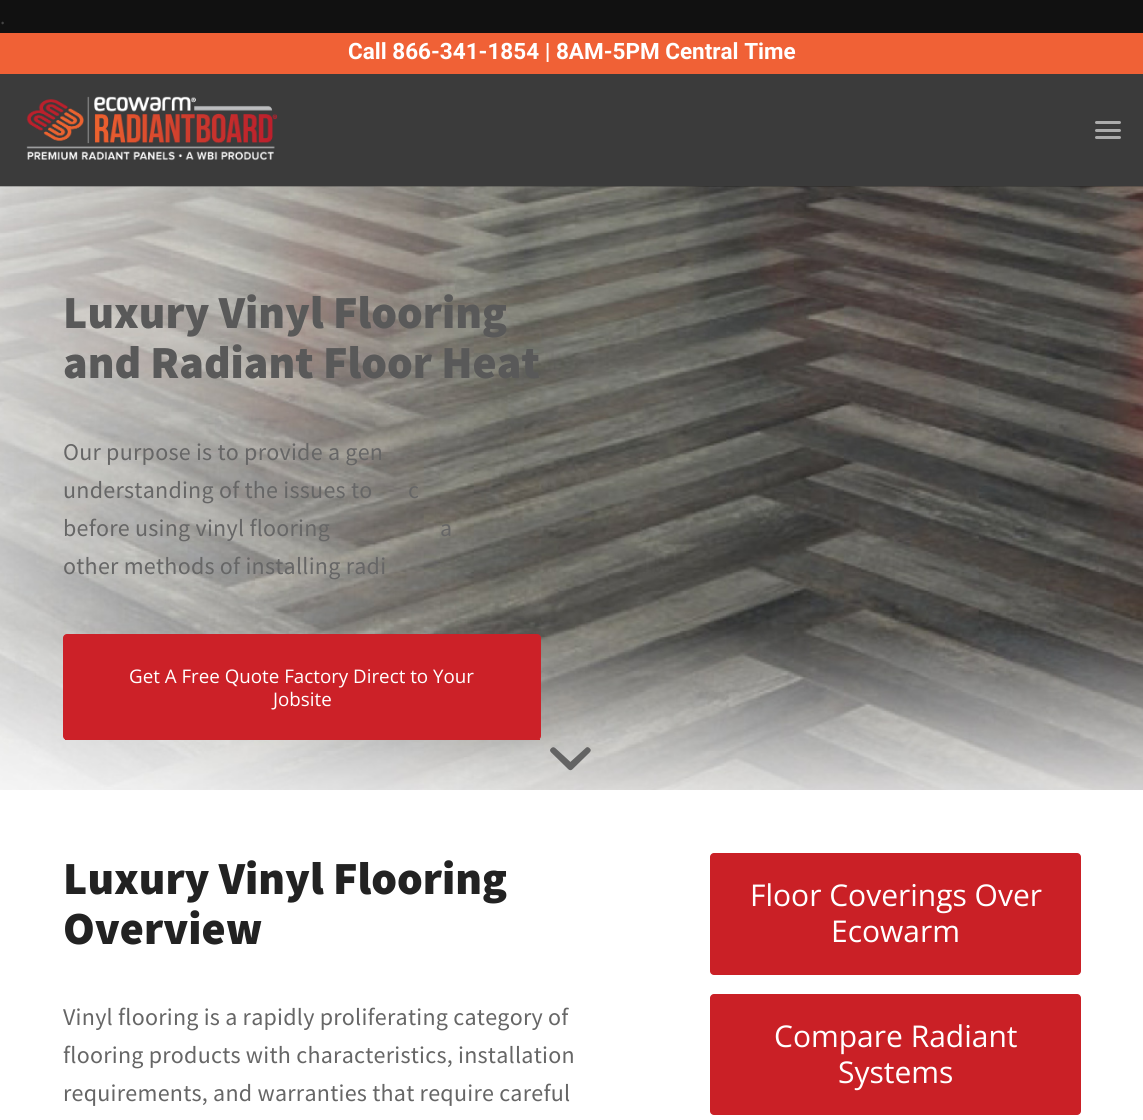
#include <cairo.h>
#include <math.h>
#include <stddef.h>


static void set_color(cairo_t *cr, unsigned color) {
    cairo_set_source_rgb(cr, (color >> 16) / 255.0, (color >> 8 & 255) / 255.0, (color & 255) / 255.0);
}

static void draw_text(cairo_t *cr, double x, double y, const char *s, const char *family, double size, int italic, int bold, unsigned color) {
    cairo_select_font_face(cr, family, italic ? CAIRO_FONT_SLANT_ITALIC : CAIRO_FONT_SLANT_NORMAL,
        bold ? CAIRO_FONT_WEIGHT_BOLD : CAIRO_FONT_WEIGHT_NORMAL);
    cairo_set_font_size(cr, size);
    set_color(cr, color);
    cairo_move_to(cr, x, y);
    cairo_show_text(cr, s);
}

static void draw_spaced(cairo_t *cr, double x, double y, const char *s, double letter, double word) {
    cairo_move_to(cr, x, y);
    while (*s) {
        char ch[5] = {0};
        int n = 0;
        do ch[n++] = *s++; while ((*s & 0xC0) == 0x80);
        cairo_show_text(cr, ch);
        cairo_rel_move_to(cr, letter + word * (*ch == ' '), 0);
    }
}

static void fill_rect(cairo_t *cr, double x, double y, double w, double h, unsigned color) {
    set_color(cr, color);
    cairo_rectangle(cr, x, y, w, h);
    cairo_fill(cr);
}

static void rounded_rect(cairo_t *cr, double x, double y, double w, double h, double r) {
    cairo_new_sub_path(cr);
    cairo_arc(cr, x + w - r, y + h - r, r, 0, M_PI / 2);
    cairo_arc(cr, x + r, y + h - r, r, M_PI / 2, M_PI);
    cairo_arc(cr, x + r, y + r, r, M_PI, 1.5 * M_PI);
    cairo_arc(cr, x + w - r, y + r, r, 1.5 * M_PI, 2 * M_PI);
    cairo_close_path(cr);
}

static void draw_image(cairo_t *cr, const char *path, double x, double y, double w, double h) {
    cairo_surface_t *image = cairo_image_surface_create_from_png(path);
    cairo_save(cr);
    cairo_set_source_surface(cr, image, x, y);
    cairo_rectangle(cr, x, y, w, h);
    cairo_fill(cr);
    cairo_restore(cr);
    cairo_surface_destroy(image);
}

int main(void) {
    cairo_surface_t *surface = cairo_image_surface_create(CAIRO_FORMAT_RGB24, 1143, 1120);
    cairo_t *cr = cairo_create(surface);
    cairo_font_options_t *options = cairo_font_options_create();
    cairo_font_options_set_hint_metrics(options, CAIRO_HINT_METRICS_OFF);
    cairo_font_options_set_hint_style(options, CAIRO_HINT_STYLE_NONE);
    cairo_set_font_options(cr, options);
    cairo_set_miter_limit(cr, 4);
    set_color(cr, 0x111111);
    cairo_paint(cr);
    draw_text(cr, 0, 24, ".", "Open Sans", 20, 0, 0, 0x444444);
    fill_rect(cr, 0, 33, 1143, 41, 0xF06136);
    draw_text(cr, 348, 59, "Call 866-341-1854 | 8AM-5PM Central Time", "Roboto", 22.5, 0, 1, 0xFFFFFF);
    fill_rect(cr, 0, 74, 1143, 112, 0x3B3B3B);
    draw_image(cr, "assets/img1.png", 26, 96, 252, 65);
    set_color(cr, 0xABABAB);
    rounded_rect(cr, 1095, 129, 26, 3, 1.5);
    cairo_fill(cr);
    rounded_rect(cr, 1095, 121, 26, 3, 1.5);
    cairo_fill(cr);
    rounded_rect(cr, 1095, 136, 26, 3, 1.5);
    cairo_fill(cr);
    draw_image(cr, "assets/img2.png", 0, 186, 1143, 604);
    draw_text(cr, 63, 328, "Luxury Vinyl Flooring", "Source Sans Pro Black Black", 46, 0, 0, 0x595959);
    draw_text(cr, 63, 378, "and Radiant Floor Heat", "Source Sans Pro Black Black", 46, 0, 0, 0x595959);
    cairo_select_font_face(cr, "Source Sans Pro", CAIRO_FONT_SLANT_NORMAL, CAIRO_FONT_WEIGHT_NORMAL);
    cairo_set_font_size(cr, 24);
    set_color(cr, 0x666666);
    draw_spaced(cr, 63, 460, "Our purpose is to provide a gen", 0.25, 0);
    draw_spaced(cr, 63, 498, "understanding of the issues to", 0.25, 0);
    draw_spaced(cr, 408, 498, "c", 0.25, 0);
    draw_spaced(cr, 63, 536, "before using vinyl flooring", 0.25, 0);
    draw_spaced(cr, 440, 536, "a", 0.25, 0);
    draw_spaced(cr, 63, 574, "other methods of installing radi", 0.25, 0);
    set_color(cr, 0xCC2128);
    rounded_rect(cr, 63, 634, 478, 106, 4);
    cairo_fill(cr);
    fill_rect(cr, 65, 739, 475, 1, 0xCC2128);
    draw_text(cr, 129, 683, "Get A Free Quote Factory Direct to Your", "Open Sans", 18.75, 0, 0, 0xFFFFFF);
    draw_text(cr, 273, 706, "Jobsite", "Open Sans", 18.75, 0, 0, 0xFFFFFF);
    draw_image(cr, "assets/img3.png", 550, 747, 41, 24);
    fill_rect(cr, 0, 790, 1143, 330, 0xFFFFFF);
    draw_text(cr, 63, 894, "Luxury Vinyl Flooring", "Source Sans Pro Black Black", 46, 0, 0, 0x222222);
    draw_text(cr, 63, 944, "Overview", "Source Sans Pro Black Black", 46, 0, 0, 0x222222);
    cairo_select_font_face(cr, "Source Sans Pro", CAIRO_FONT_SLANT_NORMAL, CAIRO_FONT_WEIGHT_NORMAL);
    cairo_set_font_size(cr, 24);
    set_color(cr, 0x666666);
    draw_spaced(cr, 63, 1025, "Vinyl flooring is a rapidly proliferating category of", 0.25, 0);
    draw_spaced(cr, 63, 1063, "flooring products with characteristics, installation", 0.25, 0);
    draw_spaced(cr, 63, 1101, "requirements, and warranties that require careful", 0.25, 0);
    set_color(cr, 0xCA2026);
    rounded_rect(cr, 710, 853, 371, 122, 4);
    cairo_fill(cr);
    draw_text(cr, 750, 906, "Floor Coverings Over", "Open Sans", 30, 0, 0, 0xFFFFFF);
    draw_text(cr, 831, 942, "Ecowarm", "Open Sans", 30, 0, 0, 0xFFFFFF);
    set_color(cr, 0xCA2026);
    rounded_rect(cr, 710, 994, 371, 121, 4);
    cairo_fill(cr);
    draw_text(cr, 774, 1047, "Compare Radiant", "Open Sans", 30, 0, 0, 0xFFFFFF);
    draw_text(cr, 838, 1083, "Systems", "Open Sans", 30, 0, 0, 0xFFFFFF);
    cairo_surface_write_to_png(surface, "output.png");
    cairo_font_options_destroy(options);
    cairo_destroy(cr);
    cairo_surface_destroy(surface);
    return 0;
}
